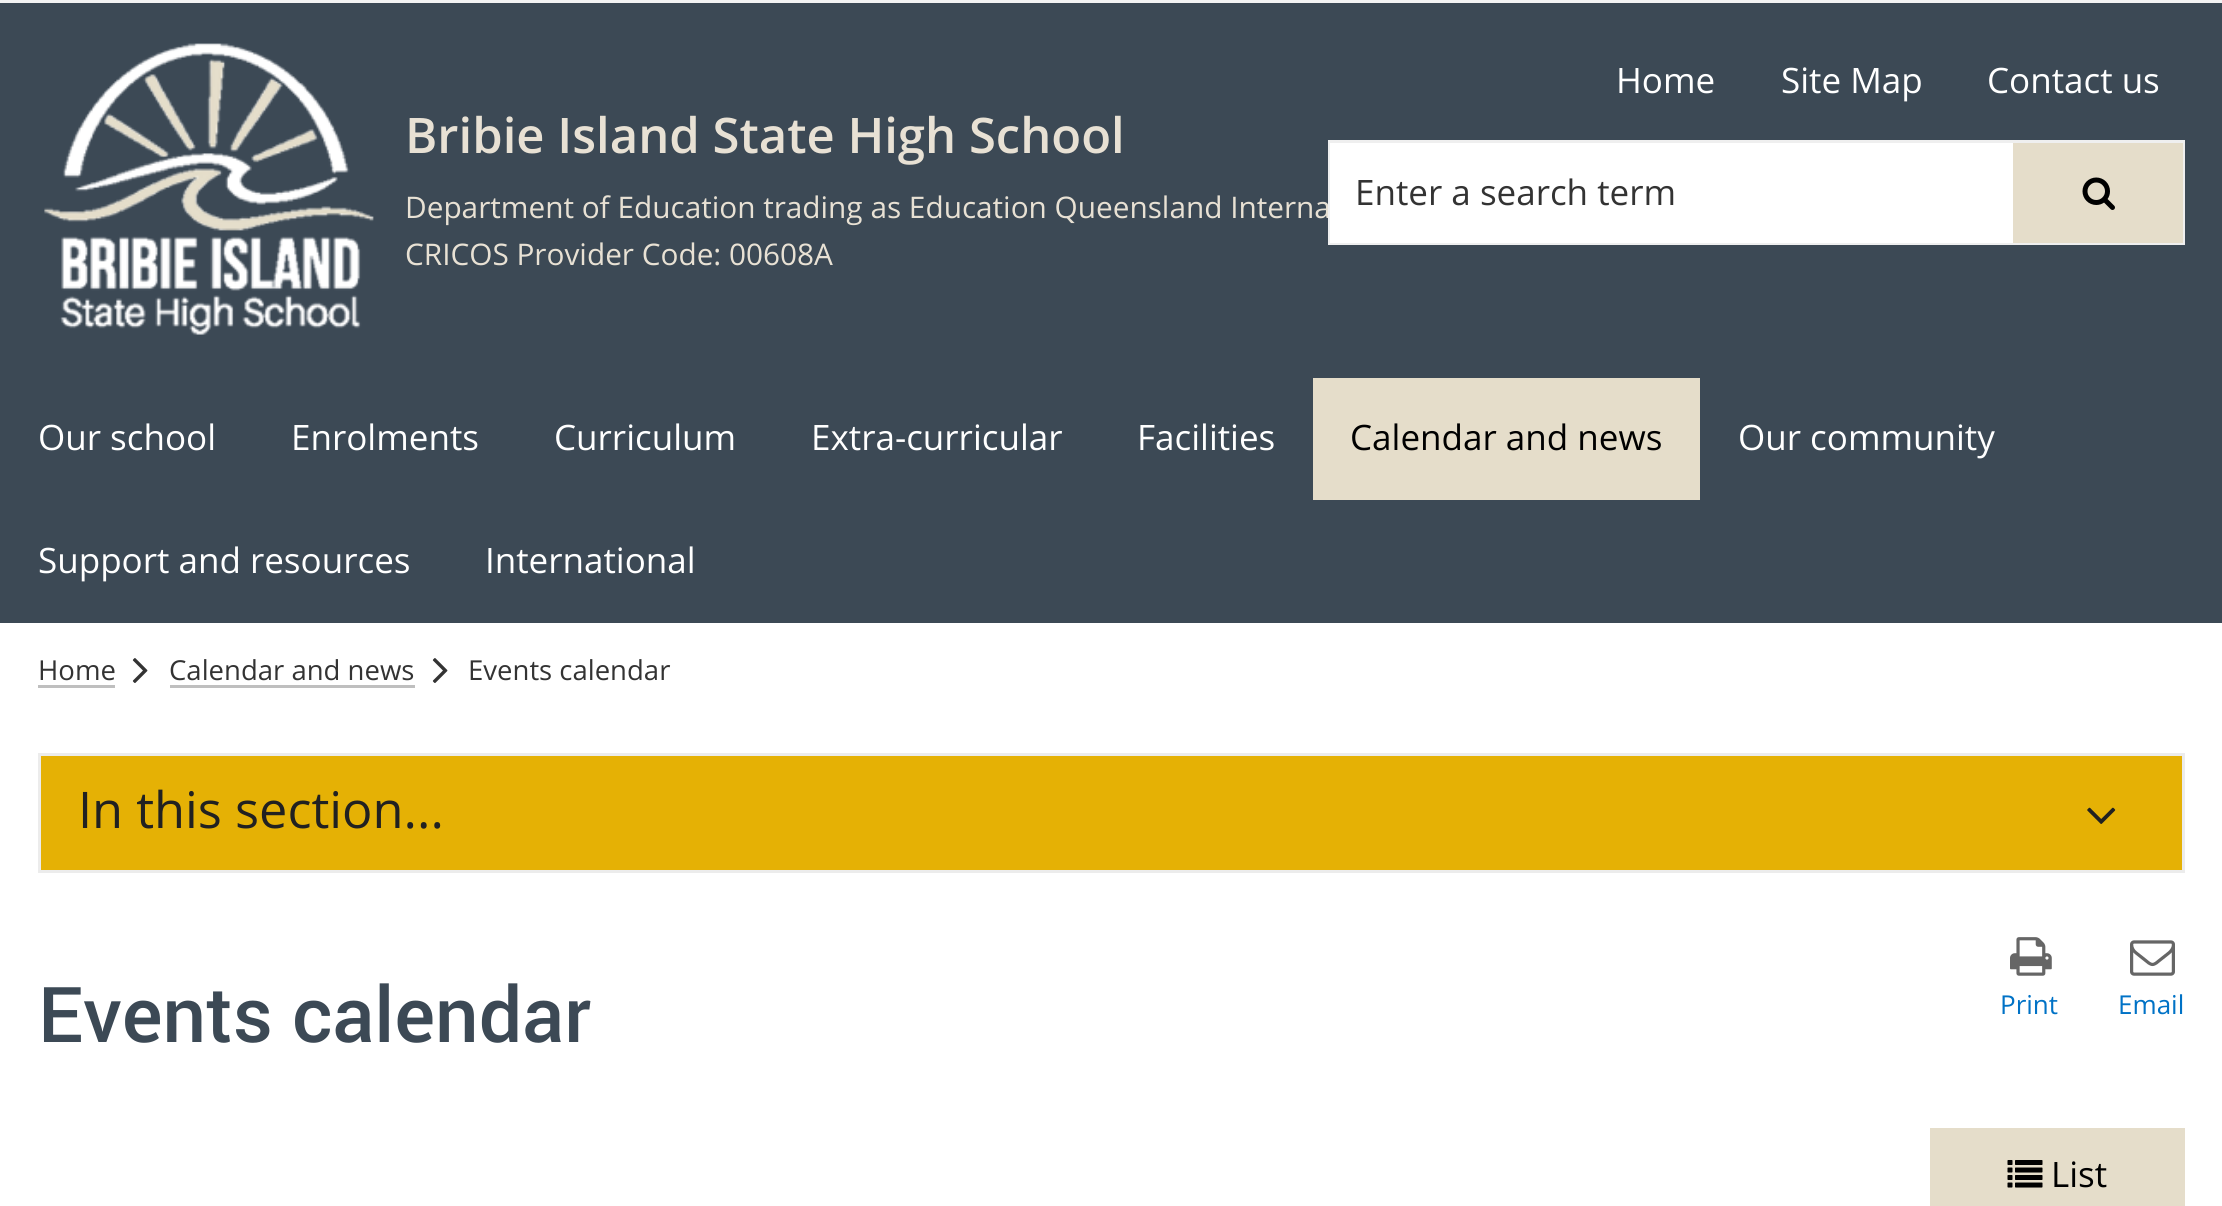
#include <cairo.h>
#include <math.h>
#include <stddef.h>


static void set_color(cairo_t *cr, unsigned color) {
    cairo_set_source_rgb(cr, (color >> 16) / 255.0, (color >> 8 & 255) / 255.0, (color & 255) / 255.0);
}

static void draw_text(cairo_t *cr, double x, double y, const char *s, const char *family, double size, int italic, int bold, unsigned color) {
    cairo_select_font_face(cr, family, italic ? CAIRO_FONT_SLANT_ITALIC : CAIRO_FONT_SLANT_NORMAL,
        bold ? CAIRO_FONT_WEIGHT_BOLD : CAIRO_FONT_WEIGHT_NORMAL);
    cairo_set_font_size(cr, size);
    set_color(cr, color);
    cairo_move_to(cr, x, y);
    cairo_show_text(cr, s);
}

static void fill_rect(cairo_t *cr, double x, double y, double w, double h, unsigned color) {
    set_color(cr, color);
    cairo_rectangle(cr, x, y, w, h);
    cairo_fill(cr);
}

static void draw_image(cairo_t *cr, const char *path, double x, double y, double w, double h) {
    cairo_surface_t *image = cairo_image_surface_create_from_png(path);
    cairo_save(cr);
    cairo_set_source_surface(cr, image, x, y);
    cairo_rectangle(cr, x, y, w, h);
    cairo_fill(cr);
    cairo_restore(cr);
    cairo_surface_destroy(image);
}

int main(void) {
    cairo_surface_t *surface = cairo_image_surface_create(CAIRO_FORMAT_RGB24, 2222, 1206);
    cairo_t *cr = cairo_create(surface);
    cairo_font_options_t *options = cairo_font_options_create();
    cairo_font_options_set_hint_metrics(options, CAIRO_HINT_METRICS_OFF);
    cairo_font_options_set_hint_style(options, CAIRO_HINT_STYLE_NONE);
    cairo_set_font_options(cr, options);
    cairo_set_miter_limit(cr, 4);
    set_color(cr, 0xFFFFFF);
    cairo_paint(cr);
    fill_rect(cr, 0, 0, 2222, 3, 0xF3F3F3);
    fill_rect(cr, 0, 3, 2222, 620, 0x3C4955);
    draw_image(cr, "assets/img1.png", 44, 43, 330, 292);
    draw_text(cr, 405, 153, "Bribie Island State High School", "Open Sans SemiBold", 49, 0, 0, 0xE8E1D4);
    draw_text(cr, 405, 218, "Department of Education trading as Education Queensland Interna", "Open Sans", 29.75, 0, 0, 0xE8E1D4);
    draw_text(cr, 405, 265, "CRICOS Provider Code: 00608A", "Open Sans", 29.75, 0, 0, 0xE8E1D4);
    draw_text(cr, 1616, 93, "Home", "Open Sans", 35, 0, 0, 0xFFFFFF);
    draw_text(cr, 1781, 93, "Site Map", "Open Sans", 35, 0, 0, 0xFFFFFF);
    draw_text(cr, 1987, 93, "Contact us", "Open Sans", 35, 0, 0, 0xFFFFFF);
    cairo_rectangle(cr, 1329.5, 141.5, 854, 102);
    set_color(cr, 0xEFEFEF);
    cairo_set_line_width(cr, 3);
    cairo_stroke(cr);
    fill_rect(cr, 1330, 143, 683, 100, 0xFFFFFF);
    draw_text(cr, 1355, 205, "Enter a search term", "Open Sans", 35, 0, 0, 0x333333);
    fill_rect(cr, 2013, 143, 170, 100, 0xE5DDCA);
    draw_image(cr, "assets/img2.png", 2082, 177, 33, 33);
    draw_text(cr, 38, 450, "Our school", "Open Sans", 35, 0, 0, 0xFFFFFF);
    draw_text(cr, 291, 450, "Enrolments", "Open Sans", 35, 0, 0, 0xFFFFFF);
    draw_text(cr, 554, 450, "Curriculum", "Open Sans", 35, 0, 0, 0xFFFFFF);
    draw_text(cr, 811, 450, "Extra-curricular", "Open Sans", 35, 0, 0, 0xFFFFFF);
    draw_text(cr, 1137, 450, "Facilities", "Open Sans", 35, 0, 0, 0xFFFFFF);
    fill_rect(cr, 1313, 378, 387, 122, 0xE5DDCA);
    draw_text(cr, 1350, 450, "Calendar and news", "Open Sans", 35, 0, 0, 0x000000);
    draw_text(cr, 1738, 450, "Our community", "Open Sans", 35, 0, 0, 0xFFFFFF);
    draw_text(cr, 38, 573, "Support and resources", "Open Sans", 35, 0, 0, 0xFFFFFF);
    draw_text(cr, 485, 573, "International", "Open Sans", 35, 0, 0, 0xFFFFFF);
    draw_text(cr, 38, 680, "Home", "Open Sans", 27.5, 0, 0, 0x333333);
    fill_rect(cr, 38, 685, 77, 3, 0xBFBFBF);
    draw_image(cr, "assets/img3.png", 132, 658, 16, 25);
    draw_text(cr, 169, 680, "Calendar and news", "Open Sans", 27.5, 0, 0, 0x333333);
    fill_rect(cr, 170, 685, 245, 3, 0xBFBFBF);
    draw_image(cr, "assets/img3.png", 432, 658, 16, 25);
    draw_text(cr, 468, 680, "Events calendar", "Open Sans", 27.5, 0, 0, 0x333333);
    set_color(cr, 0xE5B105);
    cairo_rectangle(cr, 39.5, 754.5, 2144, 117);
    cairo_fill_preserve(cr);
    set_color(cr, 0xECECEC);
    cairo_stroke(cr);
    draw_text(cr, 78, 828, "In this section...", "Open Sans", 50.5, 0, 0, 0x212121);
    draw_image(cr, "assets/img4.png", 2087, 807, 29, 17);
    draw_text(cr, 38, 1042, "Events calendar", "Roboto Medium", 77, 0, 0, 0x3C4955);
    draw_image(cr, "assets/img5.png", 2010, 937, 42, 39);
    draw_text(cr, 2000, 1014, "Print", "Open Sans", 26, 0, 0, 0x0072C6);
    draw_image(cr, "assets/img6.png", 2130, 940, 45, 36);
    draw_text(cr, 2118, 1014, "Email", "Open Sans", 26, 0, 0, 0x0072C6);
    fill_rect(cr, 1930, 1128, 255, 78, 0xE5DDCA);
    draw_image(cr, "assets/img7.png", 2007, 1160, 36, 28);
    draw_text(cr, 2051, 1187, "List", "Open Sans", 35, 0, 0, 0x000000);
    cairo_surface_write_to_png(surface, "output.png");
    cairo_font_options_destroy(options);
    cairo_destroy(cr);
    cairo_surface_destroy(surface);
    return 0;
}
